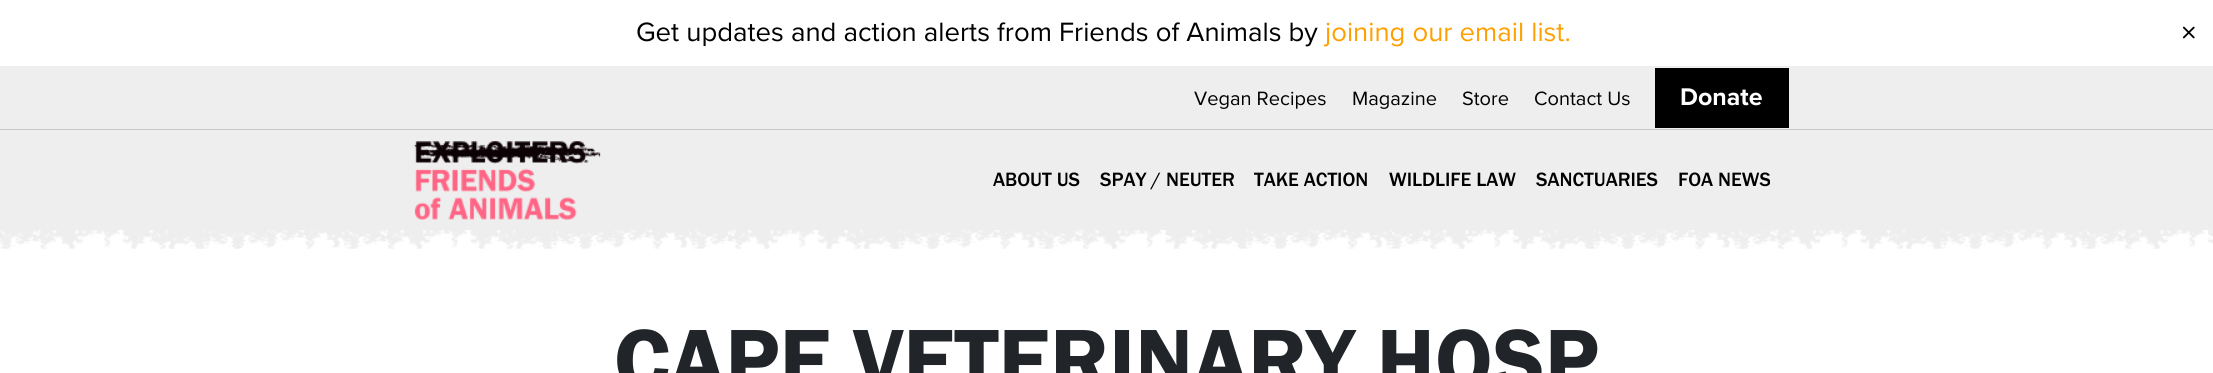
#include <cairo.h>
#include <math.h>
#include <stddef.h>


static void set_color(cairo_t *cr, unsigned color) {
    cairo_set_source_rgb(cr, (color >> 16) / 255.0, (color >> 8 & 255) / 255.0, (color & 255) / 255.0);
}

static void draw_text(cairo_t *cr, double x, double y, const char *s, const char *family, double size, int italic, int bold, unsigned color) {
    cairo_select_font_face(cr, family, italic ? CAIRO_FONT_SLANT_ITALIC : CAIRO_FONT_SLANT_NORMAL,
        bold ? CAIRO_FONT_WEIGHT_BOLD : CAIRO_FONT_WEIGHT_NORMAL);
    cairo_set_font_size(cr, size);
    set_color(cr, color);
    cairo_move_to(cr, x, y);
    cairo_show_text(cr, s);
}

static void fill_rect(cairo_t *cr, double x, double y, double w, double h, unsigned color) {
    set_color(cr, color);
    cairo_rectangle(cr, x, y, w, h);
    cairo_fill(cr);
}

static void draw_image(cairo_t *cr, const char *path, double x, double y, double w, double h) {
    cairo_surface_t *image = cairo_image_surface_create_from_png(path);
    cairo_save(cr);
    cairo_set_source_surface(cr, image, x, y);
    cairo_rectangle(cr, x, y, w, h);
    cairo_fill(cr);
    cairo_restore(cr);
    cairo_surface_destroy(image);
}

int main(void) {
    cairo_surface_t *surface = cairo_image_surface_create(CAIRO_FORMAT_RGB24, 2213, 373);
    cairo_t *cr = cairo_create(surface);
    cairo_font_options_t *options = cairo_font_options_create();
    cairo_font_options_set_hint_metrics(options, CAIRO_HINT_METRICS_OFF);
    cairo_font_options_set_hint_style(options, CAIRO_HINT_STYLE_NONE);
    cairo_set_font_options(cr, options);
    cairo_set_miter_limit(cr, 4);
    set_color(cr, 0xFFFFFF);
    cairo_paint(cr);
    fill_rect(cr, 0, 66, 2213, 164, 0xEEEEEE);
    draw_text(cr, 636, 41, "Get updates and action alerts from Friends of Animals by", "Proxima Nova", 27.5, 0, 0, 0x000000);
    draw_text(cr, 1325, 41, "joining our email list.", "Proxima Nova", 27.5, 0, 0, 0xFF9F00);
    draw_image(cr, "assets/img1.png", 2182, 26, 13, 13);
    fill_rect(cr, 0, 129, 2213, 1, 0xC6C6C6);
    draw_text(cr, 1194, 105, "Vegan Recipes", "Proxima Nova", 20, 0, 0, 0x000000);
    draw_text(cr, 1352, 105, "Magazine", "Proxima Nova", 20, 0, 0, 0x000000);
    draw_text(cr, 1462, 105, "Store", "Proxima Nova", 20, 0, 0, 0x000000);
    draw_text(cr, 1534, 105, "Contact Us", "Proxima Nova", 20, 0, 0, 0x000000);
    fill_rect(cr, 1655, 68, 134, 60, 0x000000);
    draw_text(cr, 1680, 105, "Donate", "Proxima Nova", 25, 0, 1, 0xFFFFFF);
    draw_image(cr, "assets/img2.png", 413, 141, 188, 79);
    draw_text(cr, 993, 186, "ABOUT US", "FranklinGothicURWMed", 20, 0, 0, 0x000000);
    draw_text(cr, 1100, 186, "SPAY / NEUTER", "FranklinGothicURWMed", 20, 0, 0, 0x000000);
    draw_text(cr, 1254, 186, "TAKE ACTION", "FranklinGothicURWMed", 20, 0, 0, 0x000000);
    draw_text(cr, 1389, 186, "WILDLIFE LAW", "FranklinGothicURWMed", 20, 0, 0, 0x000000);
    draw_text(cr, 1536, 186, "SANCTUARIES", "FranklinGothicURWMed", 20, 0, 0, 0x000000);
    draw_text(cr, 1678, 186, "FOA NEWS", "FranklinGothicURWMed", 20, 0, 0, 0x000000);
    draw_image(cr, "assets/img3.png", 0, 230, 2213, 19);
    draw_text(cr, 614, 390, "CAPE VETERINARY HOSP", "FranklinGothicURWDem", 90, 0, 0, 0x212529);
    cairo_surface_write_to_png(surface, "output.png");
    cairo_font_options_destroy(options);
    cairo_destroy(cr);
    cairo_surface_destroy(surface);
    return 0;
}
